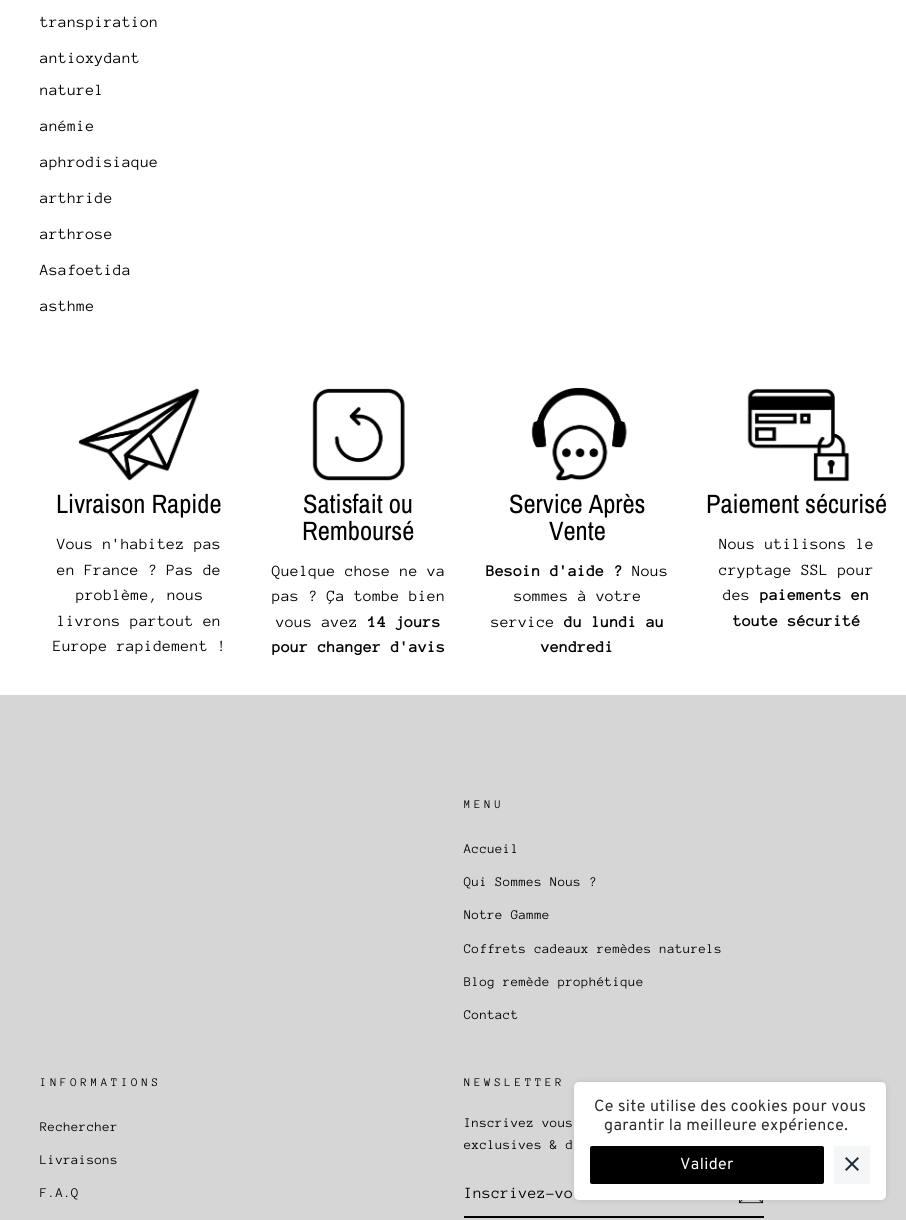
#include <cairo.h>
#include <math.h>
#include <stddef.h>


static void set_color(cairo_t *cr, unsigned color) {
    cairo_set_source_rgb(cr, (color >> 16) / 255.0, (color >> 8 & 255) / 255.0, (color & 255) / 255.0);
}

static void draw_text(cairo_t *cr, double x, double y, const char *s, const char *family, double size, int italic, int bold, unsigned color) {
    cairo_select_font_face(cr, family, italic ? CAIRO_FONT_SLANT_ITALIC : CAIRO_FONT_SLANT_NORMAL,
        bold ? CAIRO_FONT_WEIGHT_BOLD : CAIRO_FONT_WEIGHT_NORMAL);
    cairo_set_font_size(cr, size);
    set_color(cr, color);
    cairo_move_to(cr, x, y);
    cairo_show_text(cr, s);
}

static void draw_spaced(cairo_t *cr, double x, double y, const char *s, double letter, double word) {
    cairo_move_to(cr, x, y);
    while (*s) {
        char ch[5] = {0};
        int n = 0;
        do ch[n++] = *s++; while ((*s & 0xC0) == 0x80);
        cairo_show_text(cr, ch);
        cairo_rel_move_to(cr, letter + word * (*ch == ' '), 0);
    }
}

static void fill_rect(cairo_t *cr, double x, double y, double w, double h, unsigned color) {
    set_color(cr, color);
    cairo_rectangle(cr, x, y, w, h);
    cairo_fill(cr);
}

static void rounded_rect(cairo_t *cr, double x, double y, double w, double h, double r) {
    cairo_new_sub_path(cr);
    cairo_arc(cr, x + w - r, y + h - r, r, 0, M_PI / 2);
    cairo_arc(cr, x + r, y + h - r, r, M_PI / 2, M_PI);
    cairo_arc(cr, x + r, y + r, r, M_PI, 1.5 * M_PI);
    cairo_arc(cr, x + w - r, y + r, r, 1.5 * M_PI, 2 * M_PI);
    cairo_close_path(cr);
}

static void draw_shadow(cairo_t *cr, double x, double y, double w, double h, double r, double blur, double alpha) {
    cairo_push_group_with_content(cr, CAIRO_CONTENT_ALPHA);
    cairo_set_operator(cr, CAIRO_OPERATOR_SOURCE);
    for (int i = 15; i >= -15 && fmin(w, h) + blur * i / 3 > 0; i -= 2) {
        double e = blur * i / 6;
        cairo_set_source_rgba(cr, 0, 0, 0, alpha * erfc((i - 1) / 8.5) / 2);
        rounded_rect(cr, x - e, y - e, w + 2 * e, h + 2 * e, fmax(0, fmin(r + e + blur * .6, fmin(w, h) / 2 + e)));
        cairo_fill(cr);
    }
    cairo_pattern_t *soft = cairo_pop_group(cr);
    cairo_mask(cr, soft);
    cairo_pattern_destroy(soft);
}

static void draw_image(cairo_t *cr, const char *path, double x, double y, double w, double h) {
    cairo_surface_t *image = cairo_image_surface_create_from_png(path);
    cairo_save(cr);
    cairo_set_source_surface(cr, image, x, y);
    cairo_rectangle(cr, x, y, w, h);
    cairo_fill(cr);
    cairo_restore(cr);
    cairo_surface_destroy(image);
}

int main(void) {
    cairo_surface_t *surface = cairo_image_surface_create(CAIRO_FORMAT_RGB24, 906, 1220);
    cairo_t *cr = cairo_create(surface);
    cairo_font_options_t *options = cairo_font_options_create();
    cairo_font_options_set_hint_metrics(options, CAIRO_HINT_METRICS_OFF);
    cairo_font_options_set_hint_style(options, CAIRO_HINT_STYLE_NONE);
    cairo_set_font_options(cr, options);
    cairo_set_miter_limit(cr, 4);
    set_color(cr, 0xFFFFFF);
    cairo_paint(cr);
    cairo_select_font_face(cr, "Anonymous Pro", CAIRO_FONT_SLANT_NORMAL, CAIRO_FONT_WEIGHT_NORMAL);
    cairo_set_font_size(cr, 16);
    set_color(cr, 0x000000);
    draw_spaced(cr, 40, 27, "transpiration", 0.4, 0);
    draw_spaced(cr, 40, 63, "antioxydant", 0.4, 0);
    draw_spaced(cr, 40, 95, "naturel", 0.4, 0);
    draw_spaced(cr, 40, 131, "anémie", 0.4, 0);
    draw_spaced(cr, 40, 167, "aphrodisiaque", 0.4, 0);
    draw_spaced(cr, 40, 203, "arthride", 0.4, 0);
    draw_spaced(cr, 40, 239, "arthrose", 0.4, 0);
    draw_spaced(cr, 40, 275, "Asafoetida", 0.4, 0);
    draw_spaced(cr, 40, 311, "asthme", 0.4, 0);
    draw_image(cr, "assets/img1.png", 78, 388, 122, 93);
    draw_text(cr, 56, 513, "Livraison Rapide", "Archivo Narrow", 26.5, 0, 0, 0x000000);
    cairo_select_font_face(cr, "Anonymous Pro", CAIRO_FONT_SLANT_NORMAL, CAIRO_FONT_WEIGHT_NORMAL);
    cairo_set_font_size(cr, 16);
    draw_spaced(cr, 57, 549, "Vous n'habitez pas", 0.4, 0);
    draw_spaced(cr, 57, 575, "en France ? Pas de", 0.4, 0);
    draw_spaced(cr, 76, 600, "problème, nous", 0.4, 0);
    draw_spaced(cr, 57, 626, "livrons partout en", 0.4, 0);
    draw_spaced(cr, 53, 651, "Europe rapidement !", 0.4, 0);
    draw_image(cr, "assets/img2.png", 312, 388, 93, 93);
    draw_text(cr, 303, 513, "Satisfait ou", "Archivo Narrow", 26.5, 0, 0, 0x000000);
    draw_text(cr, 302, 540, "Remboursé", "Archivo Narrow", 26.5, 0, 0, 0x000000);
    cairo_select_font_face(cr, "Anonymous Pro", CAIRO_FONT_SLANT_NORMAL, CAIRO_FONT_WEIGHT_NORMAL);
    cairo_set_font_size(cr, 16);
    draw_spaced(cr, 272, 576, "Quelque chose ne va", 0.4, 0);
    draw_spaced(cr, 272, 601, "pas ? Ça tombe bien", 0.4, 0);
    draw_spaced(cr, 276, 627, "vous avez", 0.4, 0);
    cairo_select_font_face(cr, "Anonymous Pro", CAIRO_FONT_SLANT_NORMAL, CAIRO_FONT_WEIGHT_BOLD);
    draw_spaced(cr, 368, 627, "14 jours", 0.4, 0);
    draw_spaced(cr, 272, 652, "pour changer d'avis", 0.4, 0);
    draw_image(cr, "assets/img3.png", 531, 387, 96, 94);
    draw_text(cr, 509, 513, "Service Après", "Archivo Narrow", 26.5, 0, 0, 0x000000);
    draw_text(cr, 549, 540, "Vente", "Archivo Narrow", 26.5, 0, 0, 0x000000);
    cairo_select_font_face(cr, "Anonymous Pro", CAIRO_FONT_SLANT_NORMAL, CAIRO_FONT_WEIGHT_BOLD);
    cairo_set_font_size(cr, 16);
    draw_spaced(cr, 486, 576, "Besoin d'aide ?", 0.4, 0);
    cairo_select_font_face(cr, "Anonymous Pro", CAIRO_FONT_SLANT_NORMAL, CAIRO_FONT_WEIGHT_NORMAL);
    draw_spaced(cr, 632, 576, "Nous", 0.4, 0);
    draw_spaced(cr, 514, 601, "sommes à votre", 0.4, 0);
    draw_spaced(cr, 491, 627, "service", 0.4, 0);
    cairo_select_font_face(cr, "Anonymous Pro", CAIRO_FONT_SLANT_NORMAL, CAIRO_FONT_WEIGHT_BOLD);
    draw_spaced(cr, 564, 627, "du lundi au", 0.4, 0);
    draw_spaced(cr, 541, 652, "vendredi", 0.4, 0);
    draw_image(cr, "assets/img4.png", 747, 388, 103, 94);
    draw_text(cr, 706, 513, "Paiement sécurisé", "Archivo Narrow", 26.5, 0, 0, 0x000000);
    cairo_select_font_face(cr, "Anonymous Pro", CAIRO_FONT_SLANT_NORMAL, CAIRO_FONT_WEIGHT_NORMAL);
    cairo_set_font_size(cr, 16);
    draw_spaced(cr, 719, 549, "Nous utilisons le", 0.4, 0);
    draw_spaced(cr, 719, 575, "cryptage SSL pour", 0.4, 0);
    draw_spaced(cr, 723, 600, "des", 0.4, 0);
    cairo_select_font_face(cr, "Anonymous Pro", CAIRO_FONT_SLANT_NORMAL, CAIRO_FONT_WEIGHT_BOLD);
    draw_spaced(cr, 760, 600, "paiements en", 0.4, 0);
    draw_spaced(cr, 733, 626, "toute sécurité", 0.4, 0);
    fill_rect(cr, 0, 695, 906, 525, 0xD6D6D6);
    cairo_select_font_face(cr, "Anonymous Pro", CAIRO_FONT_SLANT_NORMAL, CAIRO_FONT_WEIGHT_NORMAL);
    cairo_set_font_size(cr, 12);
    set_color(cr, 0x000000);
    draw_spaced(cr, 464, 808, "MENU", 3.6, 0);
    cairo_set_font_size(cr, 13.6);
    draw_spaced(cr, 464, 853, "Accueil", 0.4, 0);
    draw_spaced(cr, 464, 886, "Qui Sommes Nous ?", 0.4, 0);
    draw_spaced(cr, 464, 919, "Notre Gamme", 0.4, 0);
    draw_spaced(cr, 464, 953, "Coffrets cadeaux remèdes naturels", 0.4, 0);
    draw_spaced(cr, 464, 986, "Blog remède prophétique", 0.4, 0);
    draw_spaced(cr, 464, 1019, "Contact", 0.4, 0);
    cairo_set_font_size(cr, 12);
    draw_spaced(cr, 40, 1086, "INFORMATIONS", 3.6, 0);
    cairo_set_font_size(cr, 13.6);
    draw_spaced(cr, 40, 1131, "Rechercher", 0.4, 0);
    draw_spaced(cr, 40, 1164, "Livraisons", 0.4, 0);
    draw_spaced(cr, 40, 1197, "F.A.Q", 0.4, 0);
    cairo_set_font_size(cr, 12);
    draw_spaced(cr, 464, 1086, "NEWSLETTER", 3.6, 0);
    cairo_set_font_size(cr, 13.6);
    draw_spaced(cr, 464, 1127, "Inscrivez vous", 0.4, 0);
    draw_spaced(cr, 464, 1149, "exclusives & d", 0.4, 0);
    fill_rect(cr, 464, 1216, 300, 2, 0x000000);
    cairo_set_font_size(cr, 16);
    draw_spaced(cr, 464, 1198, "Inscrivez-vo", 0.4, 0);
    draw_image(cr, "assets/img5.png", 738, 1200, 26, 4);
    set_color(cr, 0xFFFFFF);
    rounded_rect(cr, 574, 1082, 312, 118, 5);
    cairo_fill(cr);
    cairo_save(cr);
    cairo_set_fill_rule(cr, CAIRO_FILL_RULE_EVEN_ODD);
    cairo_new_path(cr);
    cairo_move_to(cr, 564, 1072);
    cairo_line_to(cr, 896, 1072);
    cairo_line_to(cr, 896, 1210);
    cairo_line_to(cr, 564, 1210);
    cairo_close_path(cr);
    cairo_move_to(cr, 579, 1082);
    cairo_line_to(cr, 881, 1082);
    cairo_curve_to(cr, 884, 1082, 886, 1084, 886, 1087);
    cairo_line_to(cr, 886, 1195);
    cairo_curve_to(cr, 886, 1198, 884, 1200, 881, 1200);
    cairo_line_to(cr, 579, 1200);
    cairo_curve_to(cr, 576, 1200, 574, 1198, 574, 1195);
    cairo_line_to(cr, 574, 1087);
    cairo_curve_to(cr, 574, 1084, 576, 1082, 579, 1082);
    cairo_close_path(cr);
    cairo_clip(cr);
    set_color(cr, 0x000000);
    draw_shadow(cr, 574, 1082, 312, 118, 5, 3, 0.12);
    cairo_restore(cr);
    cairo_select_font_face(cr, "Overpass", CAIRO_FONT_SLANT_NORMAL, CAIRO_FONT_WEIGHT_NORMAL);
    set_color(cr, 0x2D2D2D);
    draw_spaced(cr, 594, 1111, "Ce site utilise des cookies pour vous", 0.4, 0);
    draw_spaced(cr, 604, 1130, "garantir la meilleure expérience.", 0.4, 0);
    set_color(cr, 0x000000);
    rounded_rect(cr, 590, 1146, 234, 38, 2);
    cairo_fill(cr);
    set_color(cr, 0xFFFFFF);
    draw_spaced(cr, 680, 1169, "Valider", 0.4, 0);
    set_color(cr, 0xF4F6F8);
    rounded_rect(cr, 834, 1146, 36, 38, 2);
    cairo_fill(cr);
    draw_image(cr, "assets/img6.png", 845, 1157, 14, 14);
    cairo_surface_write_to_png(surface, "output.png");
    cairo_font_options_destroy(options);
    cairo_destroy(cr);
    cairo_surface_destroy(surface);
    return 0;
}
